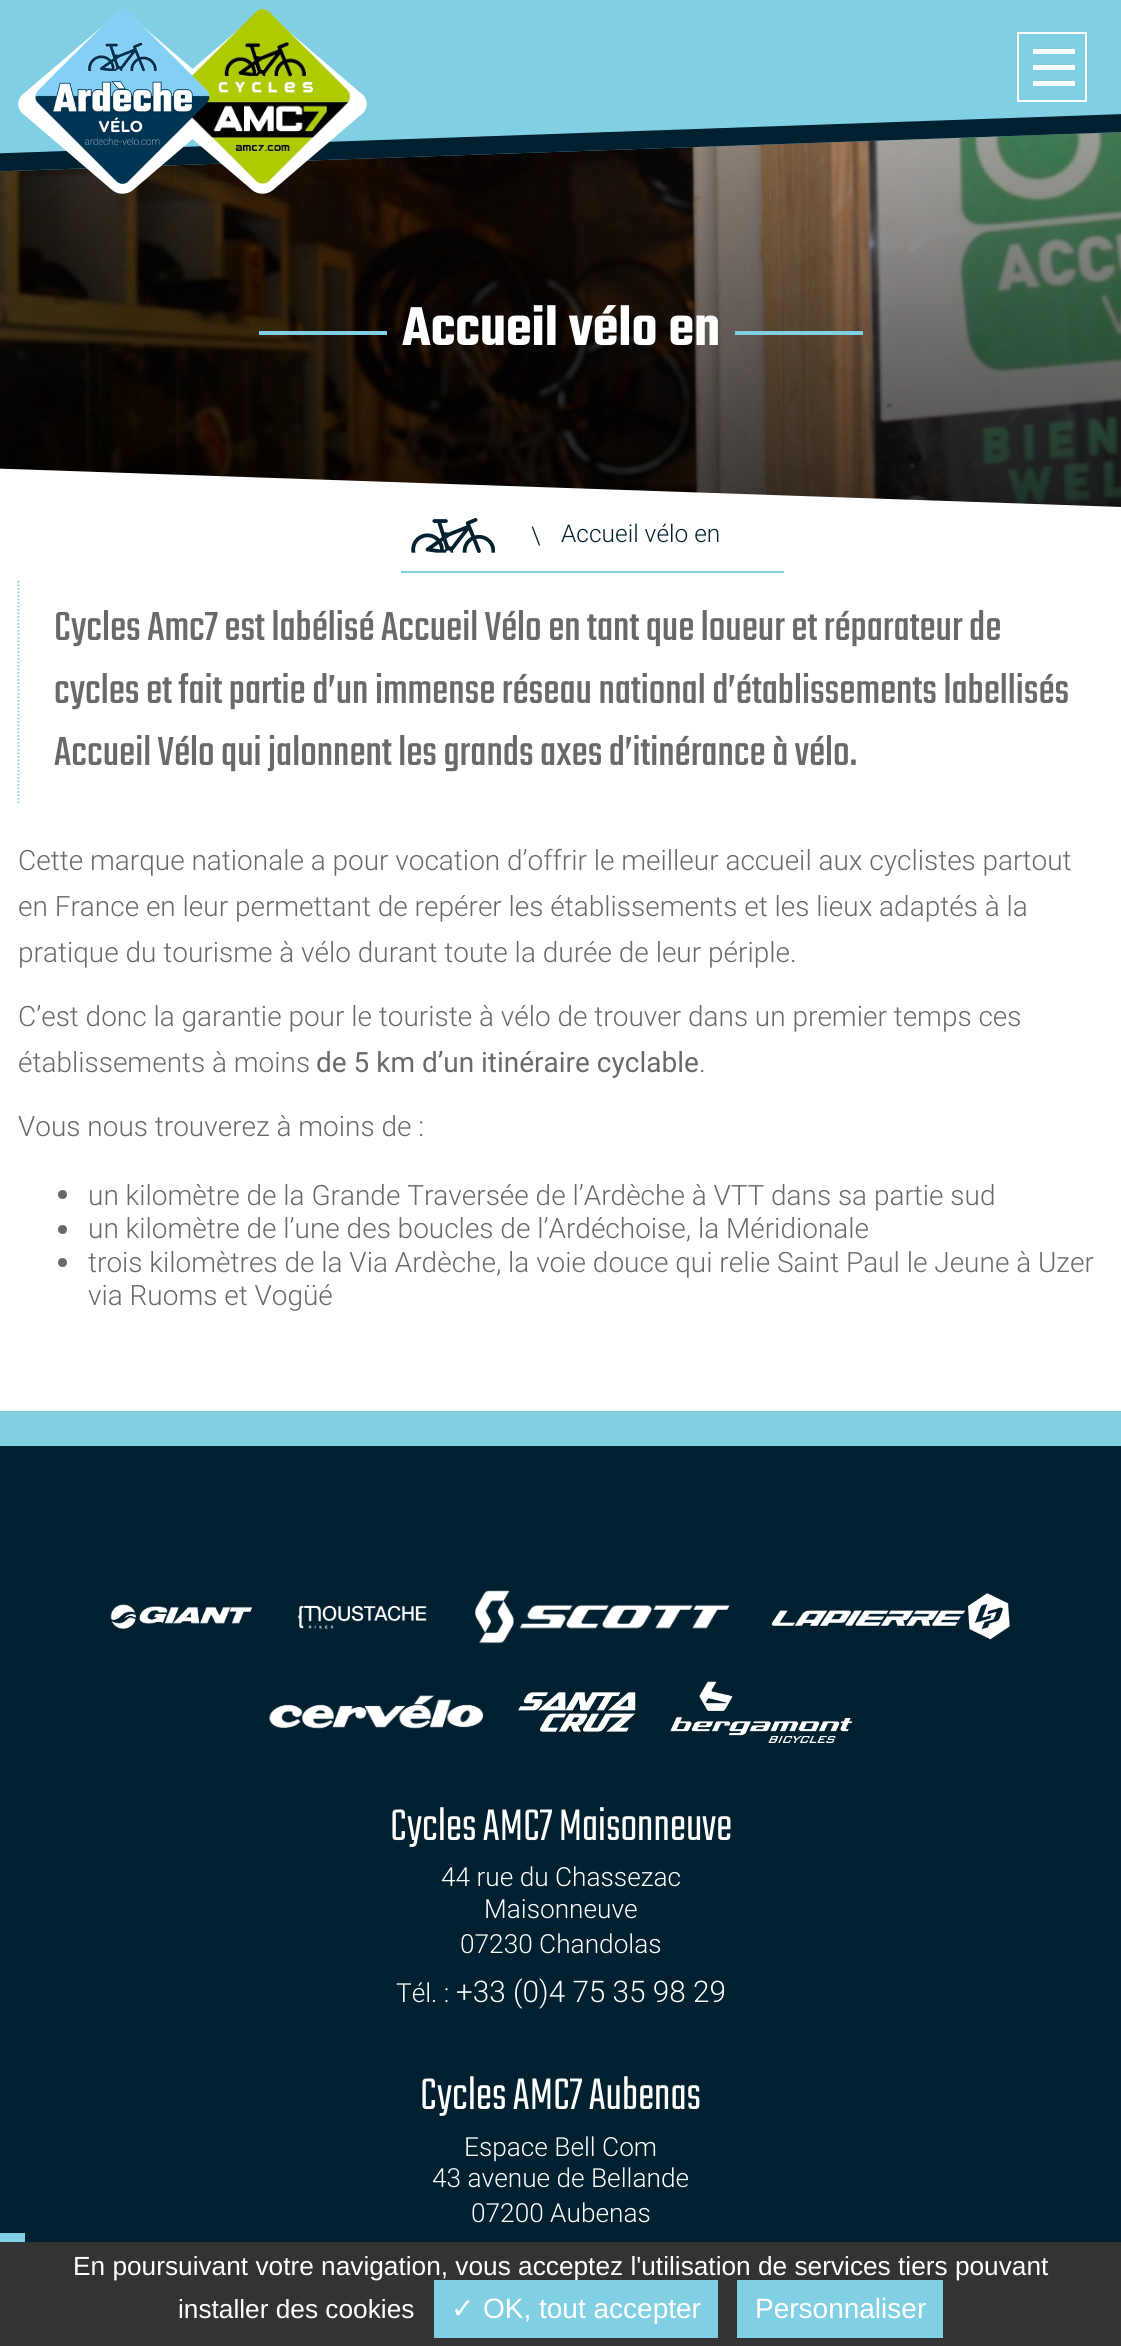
#include <cairo.h>
#include <math.h>
#include <stddef.h>


static void set_color(cairo_t *cr, unsigned color) {
    cairo_set_source_rgb(cr, (color >> 16) / 255.0, (color >> 8 & 255) / 255.0, (color & 255) / 255.0);
}

static void draw_text(cairo_t *cr, double x, double y, const char *s, const char *family, double size, int italic, int bold, unsigned color) {
    cairo_select_font_face(cr, family, italic ? CAIRO_FONT_SLANT_ITALIC : CAIRO_FONT_SLANT_NORMAL,
        bold ? CAIRO_FONT_WEIGHT_BOLD : CAIRO_FONT_WEIGHT_NORMAL);
    cairo_set_font_size(cr, size);
    set_color(cr, color);
    cairo_move_to(cr, x, y);
    cairo_show_text(cr, s);
}

static void fill_rect(cairo_t *cr, double x, double y, double w, double h, unsigned color) {
    set_color(cr, color);
    cairo_rectangle(cr, x, y, w, h);
    cairo_fill(cr);
}

static void draw_image(cairo_t *cr, const char *path, double x, double y, double w, double h) {
    cairo_surface_t *image = cairo_image_surface_create_from_png(path);
    cairo_save(cr);
    cairo_set_source_surface(cr, image, x, y);
    cairo_rectangle(cr, x, y, w, h);
    cairo_fill(cr);
    cairo_restore(cr);
    cairo_surface_destroy(image);
}

int main(void) {
    cairo_surface_t *surface = cairo_image_surface_create(CAIRO_FORMAT_RGB24, 1121, 2346);
    cairo_t *cr = cairo_create(surface);
    cairo_font_options_t *options = cairo_font_options_create();
    cairo_font_options_set_hint_metrics(options, CAIRO_HINT_METRICS_OFF);
    cairo_font_options_set_hint_style(options, CAIRO_HINT_STYLE_NONE);
    cairo_set_font_options(cr, options);
    cairo_set_miter_limit(cr, 4);
    cairo_pattern_t *gradient;
    set_color(cr, 0xFFFFFF);
    cairo_paint(cr);
    draw_image(cr, "assets/img3.png", 0, 132, 1121, 375);
    gradient = cairo_pattern_create_linear(561, 508, 561, -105);
    cairo_pattern_add_color_stop_rgba(gradient, 0, 0, 0, 0, 0.7);
    cairo_pattern_add_color_stop_rgba(gradient, 1, 0, 0, 0, 0);
    cairo_set_source(cr, gradient);
    cairo_pattern_destroy(gradient);
    cairo_rectangle(cr, 0, 132, 1121, 375);
    cairo_fill(cr);
    set_color(cr, 0x80CFE3);
    cairo_new_path(cr);
    cairo_move_to(cr, -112, 0);
    cairo_line_to(cr, 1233, -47);
    cairo_line_to(cr, 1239, 128);
    cairo_line_to(cr, -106, 175);
    cairo_close_path(cr);
    cairo_fill(cr);
    set_color(cr, 0x012030);
    cairo_new_path(cr);
    cairo_move_to(cr, -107, 157);
    cairo_line_to(cr, 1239, 110);
    cairo_line_to(cr, 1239, 128);
    cairo_line_to(cr, -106, 175);
    cairo_close_path(cr);
    cairo_fill(cr);
    set_color(cr, 0xFFFFFF);
    cairo_new_path(cr);
    cairo_move_to(cr, 133, 18);
    cairo_line_to(cr, 223, 95);
    cairo_curve_to(cr, 228, 100, 228, 108, 223, 113);
    cairo_line_to(cr, 133, 190);
    cairo_curve_to(cr, 127, 195, 118, 195, 112, 190);
    cairo_line_to(cr, 22, 113);
    cairo_curve_to(cr, 17, 108, 17, 100, 22, 95);
    cairo_line_to(cr, 112, 18);
    cairo_curve_to(cr, 118, 13, 127, 13, 133, 18);
    cairo_close_path(cr);
    cairo_fill(cr);
    cairo_new_path(cr);
    cairo_move_to(cr, 273, 18);
    cairo_line_to(cr, 363, 95);
    cairo_curve_to(cr, 368, 100, 368, 108, 363, 113);
    cairo_line_to(cr, 273, 190);
    cairo_curve_to(cr, 267, 195, 258, 195, 252, 190);
    cairo_line_to(cr, 162, 113);
    cairo_curve_to(cr, 157, 108, 157, 100, 162, 95);
    cairo_line_to(cr, 252, 18);
    cairo_curve_to(cr, 258, 13, 267, 13, 273, 18);
    cairo_close_path(cr);
    cairo_fill(cr);
    draw_image(cr, "assets/img2.png", 175, 8, 175, 176);
    draw_image(cr, "assets/img1.png", 35, 9, 175, 175);
    cairo_rectangle(cr, 1018, 33, 68, 68);
    cairo_stroke(cr);
    fill_rect(cr, 1033, 65, 42, 5, 0xFFFFFF);
    fill_rect(cr, 1033, 49, 42, 5, 0xFFFFFF);
    fill_rect(cr, 1033, 81, 42, 5, 0xFFFFFF);
    fill_rect(cr, 259, 331, 128, 4, 0x80CFE3);
    draw_text(cr, 402, 345, "Accueil vélo en", "Teko SemiBold", 59.5, 0, 0, 0xFFFFFF);
    fill_rect(cr, 735, 331, 128, 4, 0x80CFE3);
    cairo_save(cr);
    cairo_rectangle(cr, 0, 0, 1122, 508);
    cairo_clip(cr);
    set_color(cr, 0xFFFFFF);
    cairo_new_path(cr);
    cairo_move_to(cr, -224, 461);
    cairo_line_to(cr, 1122, 507);
    cairo_line_to(cr, 1116, 682);
    cairo_line_to(cr, -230, 635);
    cairo_close_path(cr);
    cairo_fill(cr);
    cairo_restore(cr);
    draw_image(cr, "assets/img4.png", 411, 518, 84, 35);
    draw_text(cr, 531, 544, "\\", "Roboto Light", 24.5, 0, 0, 0x012030);
    draw_text(cr, 561, 542, "Accueil vélo en", "Roboto Light", 24.5, 0, 0, 0x012030);
    fill_rect(cr, 401, 571, 383, 2, 0x80CFE3);
    cairo_new_path(cr);
    cairo_move_to(cr, 18.5, 581);
    cairo_line_to(cr, 18.5, 803);
    cairo_set_line_width(cr, 1.8);
    cairo_set_dash(cr, (double[]){1.75, 1.75}, 2, 0);
    cairo_stroke(cr);
    draw_text(cr, 54, 640, "Cycles Amc7 est labélisé Accueil Vélo en tant que loueur et réparateur de", "Teko", 44.8, 0, 0, 0x6B6868);
    draw_text(cr, 54, 703, "cycles et fait partie d’un immense réseau national d’établissements labellisés", "Teko", 44.8, 0, 0, 0x6B6868);
    draw_text(cr, 54, 765, "Accueil Vélo qui jalonnent les grands axes d’itinérance à vélo.", "Teko", 44.8, 0, 0, 0x6B6868);
    draw_text(cr, 18, 870, "Cette marque nationale a pour vocation d’offrir le meilleur accueil aux cyclistes partout", "Roboto Light", 28, 0, 0, 0x6B6868);
    draw_text(cr, 18, 916, "en France en leur permettant de repérer les établissements et les lieux adaptés à la", "Roboto Light", 28, 0, 0, 0x6B6868);
    draw_text(cr, 18, 962, "pratique du tourisme à vélo durant toute la durée de leur périple.", "Roboto Light", 28, 0, 0, 0x6B6868);
    draw_text(cr, 18, 1026, "C’est donc la garantie pour le touriste à vélo de trouver dans un premier temps ces", "Roboto Light", 28, 0, 0, 0x6B6868);
    draw_text(cr, 18, 1072, "établissements à moins", "Roboto Light", 28, 0, 0, 0x6B6868);
    draw_text(cr, 316, 1072, "de 5 km d’un itinéraire cyclable", "Roboto", 28, 0, 0, 0x6B6868);
    draw_text(cr, 699, 1072, ".", "Roboto Light", 28, 0, 0, 0x6B6868);
    draw_text(cr, 18, 1136, "Vous nous trouverez à moins de :", "Roboto Light", 28, 0, 0, 0x6B6868);
    cairo_new_path(cr);
    cairo_arc(cr, 62.5, 1194.5, 4.5, 0, 2 * M_PI);
    cairo_fill(cr);
    draw_text(cr, 88, 1205, "un kilomètre de la Grande Traversée de l’Ardèche à VTT dans sa partie sud", "Roboto Light", 28, 0, 0, 0x6B6868);
    cairo_new_path(cr);
    cairo_arc(cr, 62.5, 1229.5, 4.5, 0, 2 * M_PI);
    cairo_fill(cr);
    draw_text(cr, 88, 1238, "un kilomètre de l’une des boucles de l’Ardéchoise, la Méridionale", "Roboto Light", 28, 0, 0, 0x6B6868);
    cairo_new_path(cr);
    cairo_arc(cr, 62.5, 1262.5, 4.5, 0, 2 * M_PI);
    cairo_fill(cr);
    draw_text(cr, 88, 1272, "trois kilomètres de la Via Ardèche, la voie douce qui relie Saint Paul le Jeune à Uzer", "Roboto Light", 28, 0, 0, 0x6B6868);
    draw_text(cr, 88, 1305, "via Ruoms et Vogüé", "Roboto Light", 28, 0, 0, 0x6B6868);
    fill_rect(cr, 0, 1446, 1121, 796, 0x012030);
    fill_rect(cr, 0, 1411, 1121, 35, 0x80CFE3);
    draw_image(cr, "assets/img5.png", 110, 1604, 143, 25);
    draw_image(cr, "assets/img6.png", 297, 1605, 130, 24);
    draw_image(cr, "assets/img7.png", 475, 1590, 255, 54);
    draw_image(cr, "assets/img8.png", 771, 1593, 239, 47);
    draw_image(cr, "assets/img9.png", 269, 1695, 214, 34);
    draw_image(cr, "assets/img10.png", 518, 1692, 118, 40);
    draw_image(cr, "assets/img11.png", 670, 1681, 183, 62);
    draw_text(cr, 390, 1840, "Cycles AMC7 Maisonneuve", "Teko Light", 49, 0, 0, 0xFFFFFF);
    draw_text(cr, 441, 1886, "44 rue du Chassezac", "Roboto Light", 26.25, 0, 0, 0xFFFFFF);
    draw_text(cr, 484, 1918, "Maisonneuve", "Roboto Light", 26.25, 0, 0, 0xFFFFFF);
    draw_text(cr, 460, 1953, "07230 Chandolas", "Roboto Light", 26.25, 0, 0, 0xFFFFFF);
    draw_text(cr, 396, 2002, "Tél. :", "Roboto Light", 26.25, 0, 0, 0xFFFFFF);
    draw_text(cr, 456, 2002, "+33 (0)4 75 35 98 29", "Roboto Light", 29.75, 0, 0, 0xFFFFFF);
    draw_text(cr, 420, 2109, "Cycles AMC7 Aubenas", "Teko Light", 49, 0, 0, 0xFFFFFF);
    draw_text(cr, 464, 2156, "Espace Bell Com", "Roboto Light", 26.25, 0, 0, 0xFFFFFF);
    draw_text(cr, 432, 2187, "43 avenue de Bellande", "Roboto Light", 26.25, 0, 0, 0xFFFFFF);
    draw_text(cr, 471, 2222, "07200 Aubenas", "Roboto Light", 26.25, 0, 0, 0xFFFFFF);
    fill_rect(cr, 0, 2233, 25, 9, 0x80CFE3);
    fill_rect(cr, 0, 2242, 1121, 104, 0x333333);
    draw_text(cr, 73, 2275, "En poursuivant votre navigation, vous acceptez l'utilisation de services tiers pouvant", "Liberation Sans", 26.25, 0, 0, 0xFFFFFF);
    draw_text(cr, 178, 2318, "installer des cookies", "Liberation Sans", 26.25, 0, 0, 0xFFFFFF);
    fill_rect(cr, 434, 2280, 284, 58, 0x80CFE3);
    draw_text(cr, 451, 2318, "✓", "DejaVu Sans", 28, 0, 0, 0xFFFFFF);
    draw_text(cr, 483, 2318, "OK, tout accepter", "Liberation Sans", 28, 0, 0, 0xFFFFFF);
    fill_rect(cr, 737, 2280, 206, 58, 0x80CFE3);
    draw_text(cr, 755, 2318, "Personnaliser", "Liberation Sans", 28, 0, 0, 0xFFFFFF);
    cairo_surface_write_to_png(surface, "output.png");
    cairo_font_options_destroy(options);
    cairo_destroy(cr);
    cairo_surface_destroy(surface);
    return 0;
}
